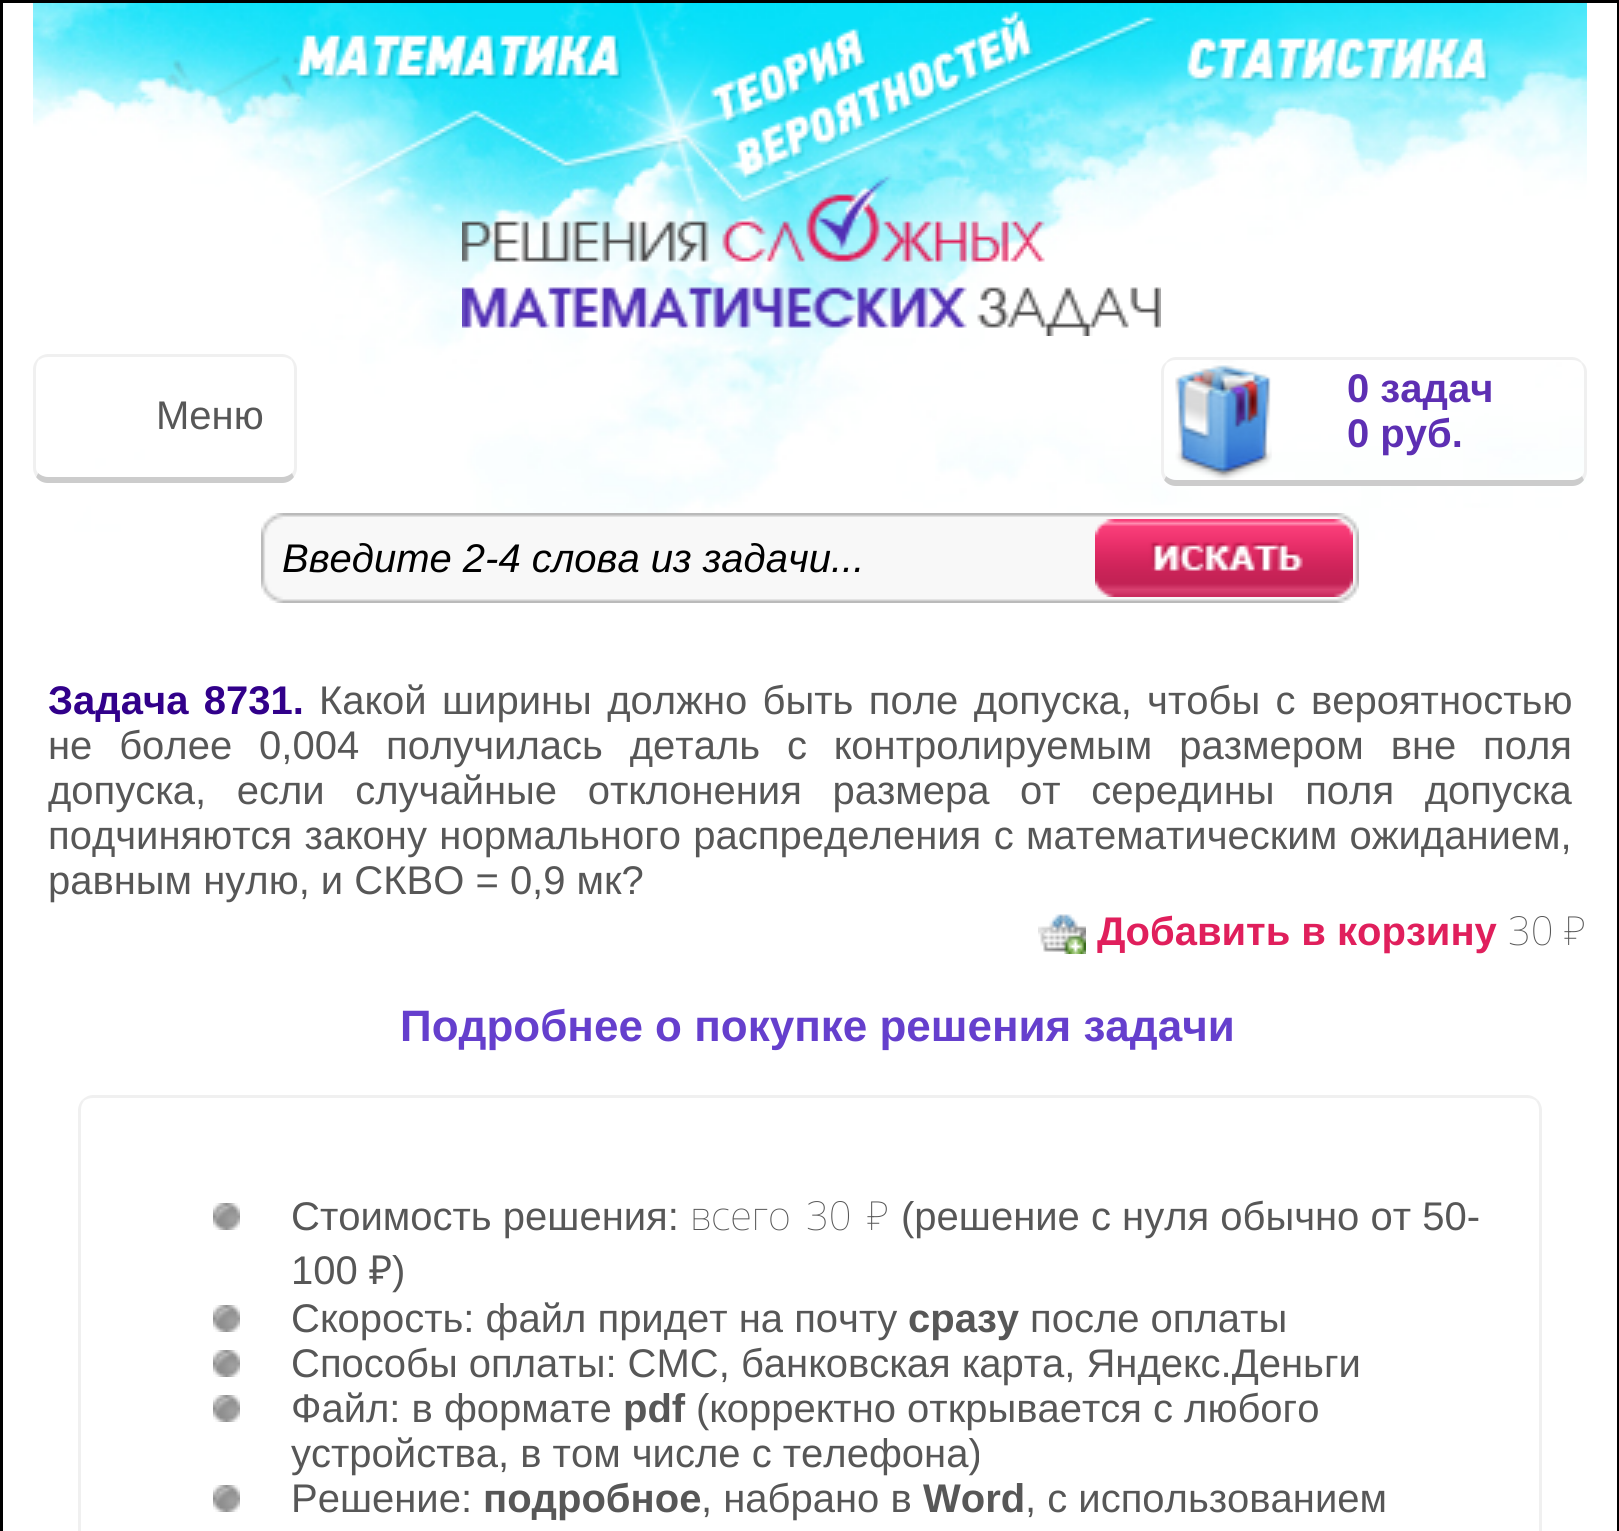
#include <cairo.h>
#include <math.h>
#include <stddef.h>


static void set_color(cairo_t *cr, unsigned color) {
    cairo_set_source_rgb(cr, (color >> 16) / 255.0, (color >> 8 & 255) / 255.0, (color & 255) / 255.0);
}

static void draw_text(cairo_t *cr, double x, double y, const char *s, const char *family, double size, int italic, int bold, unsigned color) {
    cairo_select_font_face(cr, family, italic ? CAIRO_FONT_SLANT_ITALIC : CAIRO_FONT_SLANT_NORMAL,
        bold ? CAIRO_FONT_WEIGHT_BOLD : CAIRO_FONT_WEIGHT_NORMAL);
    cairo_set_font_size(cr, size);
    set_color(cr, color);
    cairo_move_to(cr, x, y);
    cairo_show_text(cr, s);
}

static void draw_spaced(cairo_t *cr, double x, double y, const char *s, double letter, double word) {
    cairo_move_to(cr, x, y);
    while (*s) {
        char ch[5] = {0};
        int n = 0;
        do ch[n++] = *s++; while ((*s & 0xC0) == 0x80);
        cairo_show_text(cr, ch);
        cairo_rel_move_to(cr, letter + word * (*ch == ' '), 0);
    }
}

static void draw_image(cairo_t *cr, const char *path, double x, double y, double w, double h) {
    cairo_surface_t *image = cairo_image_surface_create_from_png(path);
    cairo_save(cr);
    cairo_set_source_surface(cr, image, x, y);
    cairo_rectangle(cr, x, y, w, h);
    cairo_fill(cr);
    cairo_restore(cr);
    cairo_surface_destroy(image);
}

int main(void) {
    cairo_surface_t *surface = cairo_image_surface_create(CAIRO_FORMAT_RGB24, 1619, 1531);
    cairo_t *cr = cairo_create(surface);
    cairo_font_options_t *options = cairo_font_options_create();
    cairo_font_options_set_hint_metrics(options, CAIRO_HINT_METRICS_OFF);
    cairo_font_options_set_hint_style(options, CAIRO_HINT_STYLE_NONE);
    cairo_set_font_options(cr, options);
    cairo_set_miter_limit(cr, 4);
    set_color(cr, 0xFFFFFF);
    cairo_paint(cr);
    cairo_rectangle(cr, 1.5, 1.5, 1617, 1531);
    set_color(cr, 0x000000);
    cairo_set_line_width(cr, 3);
    cairo_stroke(cr);
    draw_image(cr, "assets/img1.png", 33, 3, 1554, 537);
    draw_image(cr, "assets/img2.png", 462, 174, 699, 162);
    draw_image(cr, "assets/img3.png", 1175, 360, 97, 120);
    set_color(cr, 0xF0F0F0);
    cairo_new_path(cr);
    cairo_move_to(cr, 1176, 357);
    cairo_curve_to(cr, 1172, 357, 1168, 359, 1166, 362);
    cairo_line_to(cr, 1167, 363);
    cairo_curve_to(cr, 1170, 361, 1172, 360, 1176, 360);
    cairo_line_to(cr, 1572, 360);
    cairo_curve_to(cr, 1576, 360, 1578, 361, 1581, 363);
    cairo_line_to(cr, 1582, 362);
    cairo_curve_to(cr, 1580, 359, 1576, 357, 1572, 357);
    cairo_close_path(cr);
    cairo_fill(cr);
    cairo_new_path(cr);
    cairo_move_to(cr, 1587, 471);
    cairo_line_to(cr, 1587, 372);
    cairo_curve_to(cr, 1587, 368, 1585, 364, 1582, 362);
    cairo_line_to(cr, 1581, 363);
    cairo_curve_to(cr, 1583, 366, 1584, 368, 1584, 372);
    cairo_line_to(cr, 1584, 471);
    cairo_curve_to(cr, 1584, 473, 1583, 475, 1582, 476);
    cairo_line_to(cr, 1584, 480);
    cairo_curve_to(cr, 1586, 477, 1587, 474, 1587, 471);
    cairo_close_path(cr);
    cairo_fill(cr);
    set_color(cr, 0xCCCCCC);
    cairo_new_path(cr);
    cairo_move_to(cr, 1176, 486);
    cairo_line_to(cr, 1572, 486);
    cairo_curve_to(cr, 1577, 486, 1581, 484, 1584, 480);
    cairo_line_to(cr, 1582, 476);
    cairo_curve_to(cr, 1580, 478, 1576, 480, 1572, 480);
    cairo_line_to(cr, 1176, 480);
    cairo_curve_to(cr, 1172, 480, 1168, 478, 1166, 476);
    cairo_line_to(cr, 1164, 480);
    cairo_curve_to(cr, 1167, 484, 1171, 486, 1176, 486);
    cairo_close_path(cr);
    cairo_fill(cr);
    set_color(cr, 0xF0F0F0);
    cairo_new_path(cr);
    cairo_move_to(cr, 1161, 372);
    cairo_line_to(cr, 1161, 471);
    cairo_curve_to(cr, 1161, 474, 1162, 477, 1164, 480);
    cairo_line_to(cr, 1166, 476);
    cairo_curve_to(cr, 1165, 475, 1164, 473, 1164, 471);
    cairo_line_to(cr, 1164, 372);
    cairo_curve_to(cr, 1164, 368, 1165, 366, 1167, 363);
    cairo_line_to(cr, 1166, 362);
    cairo_curve_to(cr, 1163, 364, 1161, 368, 1161, 372);
    cairo_close_path(cr);
    cairo_fill(cr);
    draw_text(cr, 1347, 402, "0 задач", "Liberation Sans", 40, 0, 1, 0x5D2FB3);
    draw_text(cr, 1347, 447, "0 руб.", "Liberation Sans", 40, 0, 1, 0x5D2FB3);
    draw_image(cr, "assets/img4.png", 261, 513, 1098, 90);
    draw_text(cr, 282, 572, "Введите 2-4 слова из задачи...", "Liberation Sans", 40, 1, 0, 0x000000);
    draw_image(cr, "assets/img5.png", 1095, 519, 258, 78);
    set_color(cr, 0xF0F0F0);
    cairo_new_path(cr);
    cairo_move_to(cr, 48, 354);
    cairo_curve_to(cr, 44, 354, 40, 356, 38, 358);
    cairo_line_to(cr, 39, 360);
    cairo_curve_to(cr, 42, 358, 44, 357, 48, 357);
    cairo_line_to(cr, 282, 357);
    cairo_curve_to(cr, 286, 357, 288, 358, 291, 360);
    cairo_line_to(cr, 292, 358);
    cairo_curve_to(cr, 290, 356, 286, 354, 282, 354);
    cairo_close_path(cr);
    cairo_fill(cr);
    cairo_new_path(cr);
    cairo_move_to(cr, 297, 468);
    cairo_line_to(cr, 297, 369);
    cairo_curve_to(cr, 297, 365, 295, 361, 292, 358);
    cairo_line_to(cr, 291, 360);
    cairo_curve_to(cr, 293, 362, 294, 366, 294, 369);
    cairo_line_to(cr, 294, 468);
    cairo_curve_to(cr, 294, 470, 293, 472, 292, 473);
    cairo_line_to(cr, 294, 477);
    cairo_curve_to(cr, 296, 474, 297, 471, 297, 468);
    cairo_close_path(cr);
    cairo_fill(cr);
    set_color(cr, 0xCCCCCC);
    cairo_new_path(cr);
    cairo_move_to(cr, 48, 483);
    cairo_line_to(cr, 282, 483);
    cairo_curve_to(cr, 287, 483, 291, 481, 294, 477);
    cairo_line_to(cr, 292, 473);
    cairo_curve_to(cr, 290, 475, 286, 477, 282, 477);
    cairo_line_to(cr, 48, 477);
    cairo_curve_to(cr, 44, 477, 40, 475, 38, 473);
    cairo_line_to(cr, 36, 477);
    cairo_curve_to(cr, 39, 481, 43, 483, 48, 483);
    cairo_close_path(cr);
    cairo_fill(cr);
    set_color(cr, 0xF0F0F0);
    cairo_new_path(cr);
    cairo_move_to(cr, 33, 369);
    cairo_line_to(cr, 33, 468);
    cairo_curve_to(cr, 33, 471, 34, 474, 36, 477);
    cairo_line_to(cr, 38, 473);
    cairo_curve_to(cr, 37, 472, 36, 470, 36, 468);
    cairo_line_to(cr, 36, 369);
    cairo_curve_to(cr, 36, 366, 37, 362, 39, 360);
    cairo_line_to(cr, 38, 358);
    cairo_curve_to(cr, 35, 361, 33, 365, 33, 369);
    cairo_close_path(cr);
    cairo_fill(cr);
    draw_text(cr, 156, 429, "Меню", "Liberation Sans", 40, 0, 0, 0x575757);
    cairo_select_font_face(cr, "Liberation Sans", CAIRO_FONT_SLANT_NORMAL, CAIRO_FONT_WEIGHT_BOLD);
    set_color(cr, 0x31008A);
    draw_spaced(cr, 48, 714, "Задача 8731.", 0, 4.25);
    cairo_select_font_face(cr, "Liberation Sans", CAIRO_FONT_SLANT_NORMAL, CAIRO_FONT_WEIGHT_NORMAL);
    set_color(cr, 0x575757);
    draw_spaced(cr, 319, 714, "Какой ширины должно быть поле допуска, чтобы с вероятностью", 0, 4.25);
    draw_spaced(cr, 48, 759, "не более 0,004 получилась деталь с контролируемым размером вне поля", 0, 15.75);
    draw_spaced(cr, 48, 804, "допуска, если случайные отклонения размера от середины поля допуска", 0, 19.5);
    draw_spaced(cr, 48, 849, "подчиняются закону нормального распределения с математическим ожиданием,", 0, 1.25);
    draw_text(cr, 48, 894, "равным нулю, и СКВО = 0,9 мк?", "Liberation Sans", 40, 0, 0, 0x575757);
    draw_image(cr, "assets/img6.png", 1038, 914, 48, 40);
    draw_text(cr, 1097, 945, "Добавить в корзину", "Liberation Sans", 40, 0, 1, 0xE01F5C);
    draw_text(cr, 1508, 945, "30 ₽", "Noto Sans Thin", 40, 0, 0, 0x575757);
    draw_text(cr, 400, 1041, "Подробнее о покупке решения задачи", "Liberation Sans", 44, 0, 1, 0x653FCD);
    set_color(cr, 0xF0F0F0);
    cairo_new_path(cr);
    cairo_move_to(cr, 93, 1095);
    cairo_curve_to(cr, 89, 1095, 85, 1097, 82, 1100);
    cairo_line_to(cr, 84, 1101);
    cairo_curve_to(cr, 86, 1099, 90, 1098, 93, 1098);
    cairo_line_to(cr, 1527, 1098);
    cairo_curve_to(cr, 1530, 1098, 1534, 1099, 1536, 1101);
    cairo_line_to(cr, 1538, 1100);
    cairo_curve_to(cr, 1535, 1097, 1531, 1095, 1527, 1095);
    cairo_close_path(cr);
    cairo_fill(cr);
    cairo_new_path(cr);
    cairo_move_to(cr, 1542, 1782);
    cairo_line_to(cr, 1542, 1110);
    cairo_curve_to(cr, 1542, 1106, 1540, 1102, 1538, 1100);
    cairo_line_to(cr, 1536, 1101);
    cairo_curve_to(cr, 1538, 1104, 1539, 1106, 1539, 1110);
    cairo_line_to(cr, 1539, 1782);
    cairo_curve_to(cr, 1539, 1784, 1538, 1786, 1537, 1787);
    cairo_line_to(cr, 1539, 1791);
    cairo_curve_to(cr, 1541, 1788, 1542, 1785, 1542, 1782);
    cairo_close_path(cr);
    cairo_fill(cr);
    cairo_new_path(cr);
    cairo_move_to(cr, 78, 1110);
    cairo_line_to(cr, 78, 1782);
    cairo_curve_to(cr, 78, 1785, 79, 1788, 81, 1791);
    cairo_line_to(cr, 83, 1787);
    cairo_curve_to(cr, 82, 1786, 81, 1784, 81, 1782);
    cairo_line_to(cr, 81, 1110);
    cairo_curve_to(cr, 81, 1106, 82, 1104, 84, 1101);
    cairo_line_to(cr, 82, 1100);
    cairo_curve_to(cr, 80, 1102, 78, 1106, 78, 1110);
    cairo_close_path(cr);
    cairo_fill(cr);
    draw_image(cr, "assets/img7.png", 213, 1203, 27, 27);
    draw_text(cr, 291, 1230, "Стоимость решения:", "Liberation Sans", 40, 0, 0, 0x575757);
    cairo_select_font_face(cr, "Noto Sans Thin", CAIRO_FONT_SLANT_NORMAL, CAIRO_FONT_WEIGHT_NORMAL);
    draw_spaced(cr, 690, 1230, "всего 30 ₽", 0, 5);
    draw_text(cr, 901, 1230, "(решение с нуля обычно от 50-", "Liberation Sans", 40, 0, 0, 0x575757);
    draw_text(cr, 291, 1284, "100", "Liberation Sans", 40, 0, 0, 0x575757);
    draw_text(cr, 369, 1284, "₽", "Noto Sans", 40, 0, 0, 0x575757);
    draw_text(cr, 392, 1284, ")", "Liberation Sans", 40, 0, 0, 0x575757);
    draw_image(cr, "assets/img7.png", 213, 1305, 27, 27);
    draw_text(cr, 291, 1332, "Скорость: файл придет на почту", "Liberation Sans", 40, 0, 0, 0x575757);
    draw_text(cr, 908, 1332, "сразу", "Liberation Sans", 40, 0, 1, 0x575757);
    draw_text(cr, 1030, 1332, "после оплаты", "Liberation Sans", 40, 0, 0, 0x575757);
    draw_image(cr, "assets/img7.png", 213, 1350, 27, 27);
    draw_text(cr, 291, 1377, "Способы оплаты: СМС, банковская карта, Яндекс.Деньги", "Liberation Sans", 40, 0, 0, 0x575757);
    draw_image(cr, "assets/img7.png", 213, 1395, 27, 27);
    draw_text(cr, 291, 1422, "Файл: в формате", "Liberation Sans", 40, 0, 0, 0x575757);
    draw_text(cr, 623, 1422, "pdf", "Liberation Sans", 40, 0, 1, 0x575757);
    draw_text(cr, 696, 1422, "(корректно открывается c любого", "Liberation Sans", 40, 0, 0, 0x575757);
    draw_text(cr, 291, 1467, "устройства, в том числе с телефона)", "Liberation Sans", 40, 0, 0, 0x575757);
    draw_image(cr, "assets/img7.png", 213, 1485, 27, 27);
    draw_text(cr, 291, 1512, "Решение:", "Liberation Sans", 40, 0, 0, 0x575757);
    draw_text(cr, 483, 1512, "подробное", "Liberation Sans", 40, 0, 1, 0x575757);
    draw_text(cr, 701, 1512, ", набрано в", "Liberation Sans", 40, 0, 0, 0x575757);
    draw_text(cr, 923, 1512, "Word", "Liberation Sans", 40, 0, 1, 0x575757);
    draw_text(cr, 1025, 1512, ", с использованием", "Liberation Sans", 40, 0, 0, 0x575757);
    cairo_surface_write_to_png(surface, "output.png");
    cairo_font_options_destroy(options);
    cairo_destroy(cr);
    cairo_surface_destroy(surface);
    return 0;
}
